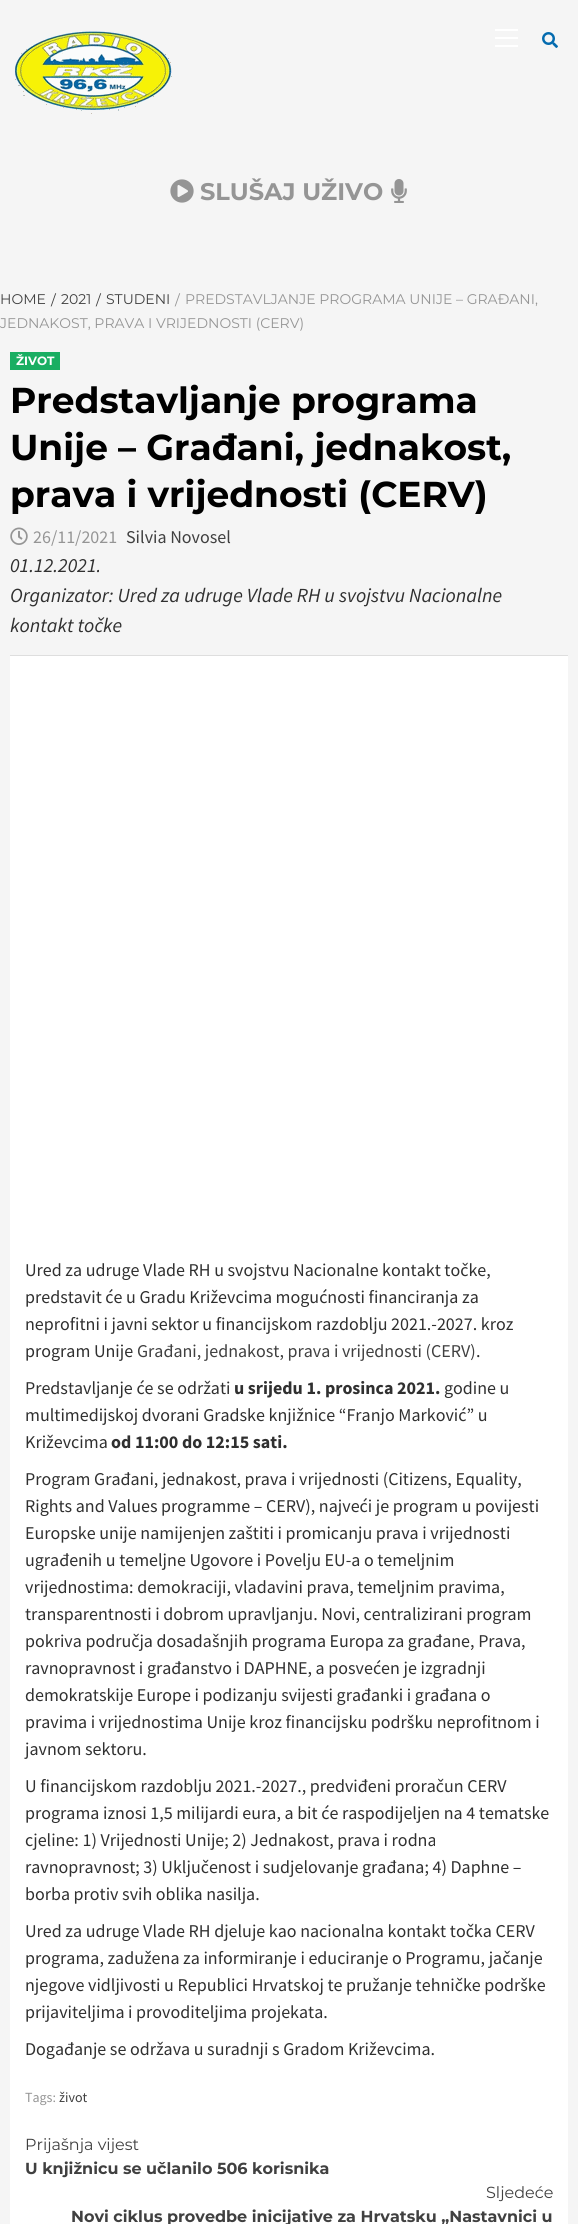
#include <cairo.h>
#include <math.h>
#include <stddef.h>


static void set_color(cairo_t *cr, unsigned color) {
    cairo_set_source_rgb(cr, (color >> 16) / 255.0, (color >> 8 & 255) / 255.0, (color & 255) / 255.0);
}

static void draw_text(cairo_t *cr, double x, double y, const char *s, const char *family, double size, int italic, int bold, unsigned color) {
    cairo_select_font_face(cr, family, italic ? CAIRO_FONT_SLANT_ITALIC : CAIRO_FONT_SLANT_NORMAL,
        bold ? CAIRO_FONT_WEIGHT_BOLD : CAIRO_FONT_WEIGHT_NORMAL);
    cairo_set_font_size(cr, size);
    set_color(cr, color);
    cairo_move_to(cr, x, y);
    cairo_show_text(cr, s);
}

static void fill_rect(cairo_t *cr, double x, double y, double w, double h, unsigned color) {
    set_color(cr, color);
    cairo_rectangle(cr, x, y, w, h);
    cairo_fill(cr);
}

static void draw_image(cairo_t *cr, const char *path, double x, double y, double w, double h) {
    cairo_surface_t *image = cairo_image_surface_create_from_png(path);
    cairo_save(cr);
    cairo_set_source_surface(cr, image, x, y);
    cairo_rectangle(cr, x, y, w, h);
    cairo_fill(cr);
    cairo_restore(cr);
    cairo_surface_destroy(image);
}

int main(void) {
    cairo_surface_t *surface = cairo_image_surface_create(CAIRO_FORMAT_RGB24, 578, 2224);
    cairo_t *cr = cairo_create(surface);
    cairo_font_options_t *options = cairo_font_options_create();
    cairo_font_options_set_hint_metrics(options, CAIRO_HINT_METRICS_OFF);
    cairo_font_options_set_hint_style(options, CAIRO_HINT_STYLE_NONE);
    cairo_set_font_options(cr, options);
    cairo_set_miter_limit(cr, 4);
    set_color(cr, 0xF5F5F5);
    cairo_paint(cr);
    draw_image(cr, "assets/img1.png", 15, 31, 157, 83);
    fill_rect(cr, 495, 37, 23, 2, 0xFFFFFF);
    fill_rect(cr, 495, 29, 23, 2, 0xFFFFFF);
    fill_rect(cr, 495, 45, 23, 2, 0xFFFFFF);
    draw_image(cr, "assets/img2.png", 542, 32, 16, 16);
    draw_image(cr, "assets/img3.png", 170, 179, 24, 24);
    draw_text(cr, 200, 200, "SLUŠAJ UŽIVO", "Montserrat", 24, 0, 1, 0x959595);
    draw_image(cr, "assets/img4.png", 391, 179, 16, 24);
    draw_text(cr, 175, 305, "/", "Montserrat", 14, 0, 0, 0x959595);
    draw_text(cr, 185, 304, "PREDSTAVLJANJE PROGRAMA UNIJE – GRAĐANI,", "Montserrat", 14, 0, 0, 0x959595);
    draw_text(cr, 0, 328, "JEDNAKOST, PRAVA I VRIJEDNOSTI (CERV)", "Montserrat", 14, 0, 0, 0x959595);
    draw_text(cr, 0, 304, "HOME", "Montserrat", 14, 0, 0, 0x404040);
    draw_text(cr, 51, 305, "/", "Montserrat", 14, 0, 0, 0x404040);
    draw_text(cr, 61, 304, "2021", "Montserrat", 14, 0, 0, 0x404040);
    draw_text(cr, 96, 305, "/", "Montserrat", 14, 0, 0, 0x404040);
    draw_text(cr, 106, 304, "STUDENI", "Montserrat", 14, 0, 0, 0x404040);
    fill_rect(cr, 10, 656, 558, 1568, 0xFFFFFF);
    fill_rect(cr, 10, 655, 558, 1, 0xDEDEDE);
    fill_rect(cr, 10, 352, 50, 18, 0x19AE62);
    draw_text(cr, 16, 365, "ŽIVOT", "Montserrat", 12, 0, 1, 0xFEFEFE);
    draw_text(cr, 10, 413, "Predstavljanje programa", "Montserrat", 36, 0, 1, 0x000000);
    draw_text(cr, 10, 460, "Unije – Građani, jednakost,", "Montserrat", 36, 0, 1, 0x000000);
    draw_text(cr, 10, 507, "prava i vrijednosti (CERV)", "Montserrat", 36, 0, 1, 0x000000);
    draw_image(cr, "assets/img5.png", 10, 527, 18, 18);
    draw_text(cr, 33, 543, "26/11/2021", "Source Sans Pro", 18, 0, 0, 0x959595);
    draw_text(cr, 126, 543, "Silvia Novosel", "Source Sans Pro", 18, 0, 0, 0x404040);
    draw_text(cr, 10, 572, "01.12.2021.", "Source Sans Pro", 20, 1, 0, 0x303030);
    draw_text(cr, 10, 602, "Organizator: Ured za udruge Vlade RH u svojstvu Nacionalne", "Source Sans Pro", 20, 1, 0, 0x303030);
    draw_text(cr, 10, 632, "kontakt točke", "Source Sans Pro", 20, 1, 0, 0x303030);
    draw_text(cr, 25, 1276, "Ured za udruge Vlade RH u svojstvu Nacionalne kontakt točke,", "Source Sans Pro", 18, 0, 0, 0x303030);
    draw_text(cr, 25, 1303, "predstavit će u Gradu Križevcima mogućnosti financiranja za", "Source Sans Pro", 18, 0, 0, 0x303030);
    draw_text(cr, 25, 1330, "neprofitni i javni sektor u financijskom razdoblju 2021.-2027. kroz", "Source Sans Pro", 18, 0, 0, 0x303030);
    draw_text(cr, 25, 1357, "program Unije", "Source Sans Pro", 18, 0, 0, 0x303030);
    draw_text(cr, 137, 1357, "Građani, jednakost, prava i vrijednosti (CERV)", "Source Sans Pro", 18, 0, 0, 0x404040);
    draw_text(cr, 476, 1357, ".", "Source Sans Pro", 18, 0, 0, 0x303030);
    draw_text(cr, 25, 1394, "Predstavljanje će se održati", "Source Sans Pro", 18, 0, 0, 0x303030);
    draw_text(cr, 234, 1394, "u srijedu 1. prosinca 2021.", "Source Sans Pro", 18, 0, 1, 0x303030);
    draw_text(cr, 444, 1394, "godine u", "Source Sans Pro", 18, 0, 0, 0x303030);
    draw_text(cr, 25, 1421, "multimedijskoj dvorani Gradske knjižnice “Franjo Marković” u", "Source Sans Pro", 18, 0, 0, 0x303030);
    draw_text(cr, 25, 1448, "Križevcima", "Source Sans Pro", 18, 0, 0, 0x303030);
    draw_text(cr, 111, 1448, "od 11:00 do 12:15 sati.", "Source Sans Pro", 18, 0, 1, 0x303030);
    draw_text(cr, 25, 1485, "Program Građani, jednakost, prava i vrijednosti (Citizens, Equality,", "Source Sans Pro", 18, 0, 0, 0x303030);
    draw_text(cr, 25, 1512, "Rights and Values programme – CERV), najveći je program u povijesti", "Source Sans Pro", 18, 0, 0, 0x303030);
    draw_text(cr, 25, 1539, "Europske unije namijenjen zaštiti i promicanju prava i vrijednosti", "Source Sans Pro", 18, 0, 0, 0x303030);
    draw_text(cr, 25, 1566, "ugrađenih u temeljne Ugovore i Povelju EU-a o temeljnim", "Source Sans Pro", 18, 0, 0, 0x303030);
    draw_text(cr, 25, 1593, "vrijednostima: demokraciji, vladavini prava, temeljnim pravima,", "Source Sans Pro", 18, 0, 0, 0x303030);
    draw_text(cr, 25, 1620, "transparentnosti i dobrom upravljanju. Novi, centralizirani program", "Source Sans Pro", 18, 0, 0, 0x303030);
    draw_text(cr, 25, 1647, "pokriva područja dosadašnjih programa Europa za građane, Prava,", "Source Sans Pro", 18, 0, 0, 0x303030);
    draw_text(cr, 25, 1674, "ravnopravnost i građanstvo i DAPHNE, a posvećen je izgradnji", "Source Sans Pro", 18, 0, 0, 0x303030);
    draw_text(cr, 25, 1701, "demokratskije Europe i podizanju svijesti građanki i građana o", "Source Sans Pro", 18, 0, 0, 0x303030);
    draw_text(cr, 25, 1728, "pravima i vrijednostima Unije kroz financijsku podršku neprofitnom i", "Source Sans Pro", 18, 0, 0, 0x303030);
    draw_text(cr, 25, 1755, "javnom sektoru.", "Source Sans Pro", 18, 0, 0, 0x303030);
    draw_text(cr, 25, 1792, "U financijskom razdoblju 2021.-2027., predviđeni proračun CERV", "Source Sans Pro", 18, 0, 0, 0x303030);
    draw_text(cr, 25, 1819, "programa iznosi 1,5 milijardi eura, a bit će raspodijeljen na 4 tematske", "Source Sans Pro", 18, 0, 0, 0x303030);
    draw_text(cr, 25, 1846, "cjeline: 1) Vrijednosti Unije; 2) Jednakost, prava i rodna", "Source Sans Pro", 18, 0, 0, 0x303030);
    draw_text(cr, 25, 1873, "ravnopravnost; 3) Uključenost i sudjelovanje građana; 4) Daphne –", "Source Sans Pro", 18, 0, 0, 0x303030);
    draw_text(cr, 25, 1900, "borba protiv svih oblika nasilja.", "Source Sans Pro", 18, 0, 0, 0x303030);
    draw_text(cr, 25, 1937, "Ured za udruge Vlade RH djeluje kao nacionalna kontakt točka CERV", "Source Sans Pro", 18, 0, 0, 0x303030);
    draw_text(cr, 25, 1964, "programa, zadužena za informiranje i educiranje o Programu, jačanje", "Source Sans Pro", 18, 0, 0, 0x303030);
    draw_text(cr, 25, 1991, "njegove vidljivosti u Republici Hrvatskoj te pružanje tehničke podrške", "Source Sans Pro", 18, 0, 0, 0x303030);
    draw_text(cr, 25, 2018, "prijaviteljima i provoditeljima projekata.", "Source Sans Pro", 18, 0, 0, 0x303030);
    draw_text(cr, 25, 2055, "Događanje se održava u suradnji s Gradom Križevcima.", "Source Sans Pro", 18, 0, 0, 0x303030);
    draw_text(cr, 25, 2102, "Tags:", "Source Sans Pro", 14, 0, 0, 0x959595);
    draw_text(cr, 59, 2102, "život", "Source Sans Pro", 14, 0, 0, 0x404040);
    draw_text(cr, 25, 2150, "Prijašnja vijest", "Montserrat", 16, 0, 0, 0x404040);
    draw_text(cr, 25, 2174, "U knjižnicu se učlanilo 506 korisnika", "Montserrat", 16, 0, 1, 0x404040);
    draw_text(cr, 486, 2198, "Sljedeće", "Montserrat", 16, 0, 0, 0x404040);
    draw_text(cr, 71, 2222, "Novi ciklus provedbe inicijative za Hrvatsku „Nastavnici u", "Montserrat", 16, 0, 1, 0x404040);
    cairo_surface_write_to_png(surface, "output.png");
    cairo_font_options_destroy(options);
    cairo_destroy(cr);
    cairo_surface_destroy(surface);
    return 0;
}
